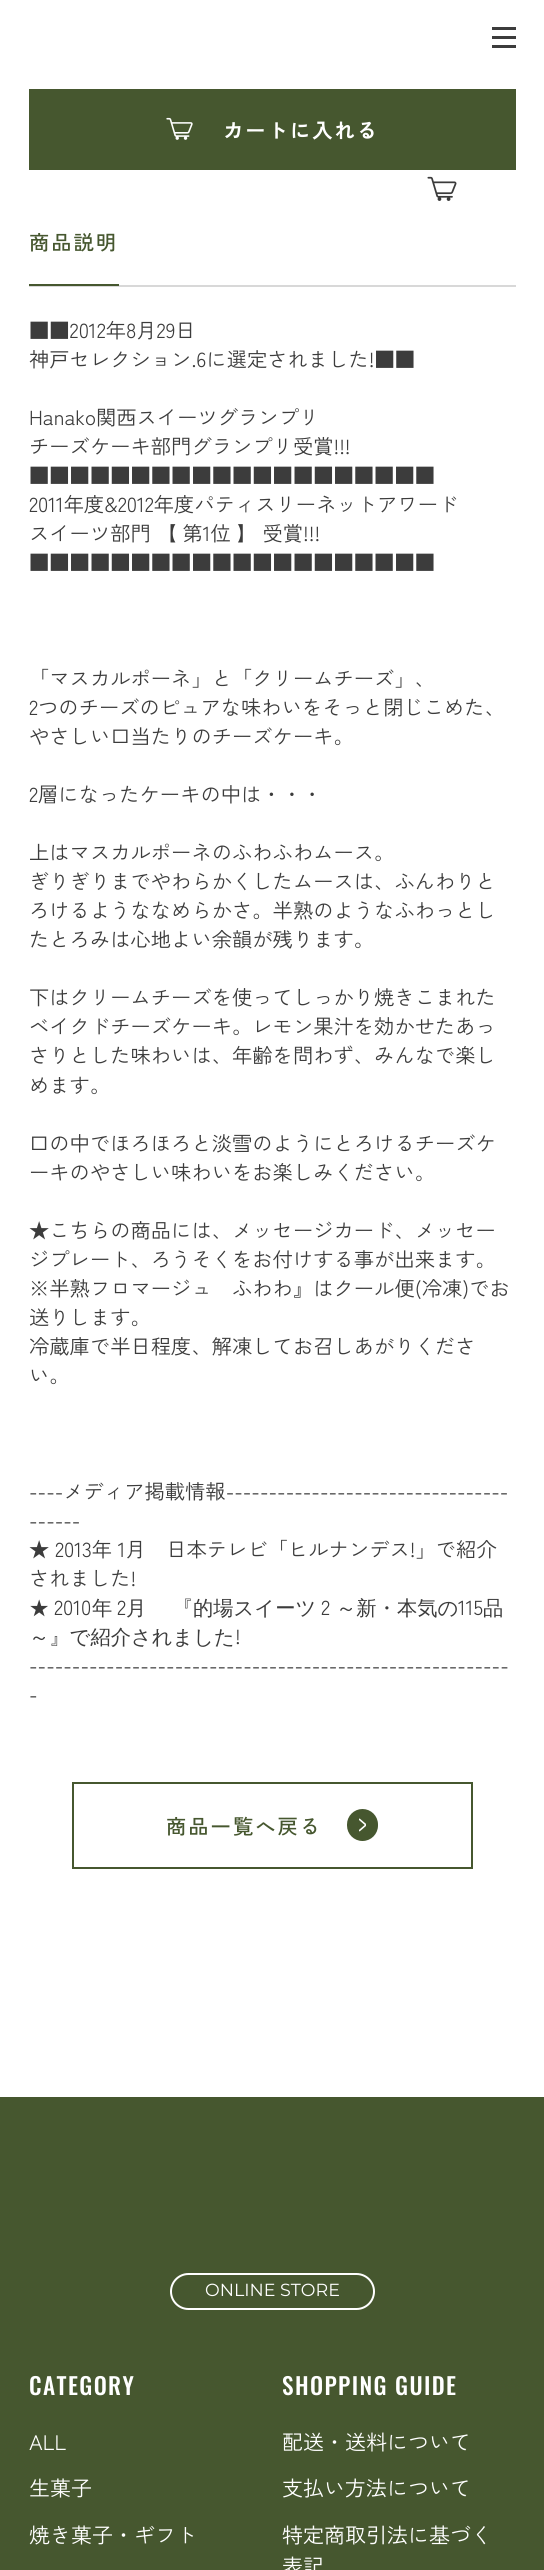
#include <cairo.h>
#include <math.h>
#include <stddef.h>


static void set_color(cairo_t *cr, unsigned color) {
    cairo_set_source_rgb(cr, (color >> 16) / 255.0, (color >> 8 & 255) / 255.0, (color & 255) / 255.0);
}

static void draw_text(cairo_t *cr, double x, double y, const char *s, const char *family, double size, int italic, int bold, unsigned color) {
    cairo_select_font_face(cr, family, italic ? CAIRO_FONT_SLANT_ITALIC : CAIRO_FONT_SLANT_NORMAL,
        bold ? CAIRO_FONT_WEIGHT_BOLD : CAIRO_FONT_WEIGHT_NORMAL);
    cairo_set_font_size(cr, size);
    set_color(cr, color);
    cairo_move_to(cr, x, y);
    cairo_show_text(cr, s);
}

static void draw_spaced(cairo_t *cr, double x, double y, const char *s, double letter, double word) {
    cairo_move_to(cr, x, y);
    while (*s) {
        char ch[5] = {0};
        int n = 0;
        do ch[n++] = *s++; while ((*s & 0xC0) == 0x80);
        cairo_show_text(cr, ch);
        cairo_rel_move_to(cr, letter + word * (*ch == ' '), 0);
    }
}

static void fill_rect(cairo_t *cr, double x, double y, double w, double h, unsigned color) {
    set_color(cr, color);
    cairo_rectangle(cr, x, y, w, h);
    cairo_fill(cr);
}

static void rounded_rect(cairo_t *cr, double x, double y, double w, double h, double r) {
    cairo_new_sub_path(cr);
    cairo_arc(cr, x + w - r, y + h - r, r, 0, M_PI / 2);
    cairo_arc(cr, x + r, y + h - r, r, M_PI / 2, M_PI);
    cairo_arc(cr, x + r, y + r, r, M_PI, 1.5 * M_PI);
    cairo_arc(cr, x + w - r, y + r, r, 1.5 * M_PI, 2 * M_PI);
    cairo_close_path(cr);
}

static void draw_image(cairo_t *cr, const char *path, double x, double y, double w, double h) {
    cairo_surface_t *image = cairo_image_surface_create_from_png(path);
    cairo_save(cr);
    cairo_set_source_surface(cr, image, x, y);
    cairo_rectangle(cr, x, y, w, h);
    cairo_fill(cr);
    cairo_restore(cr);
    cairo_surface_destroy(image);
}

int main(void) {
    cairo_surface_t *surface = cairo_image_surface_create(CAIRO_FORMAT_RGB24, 544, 2570);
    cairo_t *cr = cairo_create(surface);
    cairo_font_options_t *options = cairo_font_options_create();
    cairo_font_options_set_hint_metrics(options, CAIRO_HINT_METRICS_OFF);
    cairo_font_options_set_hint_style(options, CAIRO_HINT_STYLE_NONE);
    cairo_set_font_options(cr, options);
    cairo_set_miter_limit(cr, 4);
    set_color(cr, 0xFFFFFF);
    cairo_paint(cr);
    fill_rect(cr, 492, 27, 24, 3, 0x3C3C3C);
    fill_rect(cr, 492, 36, 24, 3, 0x3C3C3C);
    fill_rect(cr, 492, 45, 24, 3, 0x3C3C3C);
    draw_image(cr, "assets/img1.png", 427, 176, 30, 25);
    fill_rect(cr, 29, 89, 487, 81, 0x46572F);
    draw_image(cr, "assets/img2.png", 166, 117, 27, 23);
    cairo_select_font_face(cr, "Zen Kaku Gothic New", CAIRO_FONT_SLANT_NORMAL, CAIRO_FONT_WEIGHT_BOLD);
    cairo_set_font_size(cr, 20.3);
    set_color(cr, 0xFFFFFF);
    draw_spaced(cr, 223, 138, "カートに入れる", 2, 0);
    cairo_select_font_face(cr, "Zen Kaku Gothic New Medium", CAIRO_FONT_SLANT_NORMAL, CAIRO_FONT_WEIGHT_NORMAL);
    set_color(cr, 0x46572F);
    draw_spaced(cr, 29, 250, "商品説明", 2, 0);
    fill_rect(cr, 29, 285, 487, 2, 0xD8D8D8);
    fill_rect(cr, 29, 284, 90, 2, 0x46572F);
    draw_text(cr, 29, 338, "■■2012年8月29日", "Zen Kaku Gothic New", 20.3, 0, 0, 0x3C3C3C);
    draw_text(cr, 29, 367, "神戸セレクション.6に選定されました!■■", "Zen Kaku Gothic New", 20.3, 0, 0, 0x3C3C3C);
    draw_text(cr, 29, 425, "Hanako関西スイーツグランプリ", "Zen Kaku Gothic New", 20.3, 0, 0, 0x3C3C3C);
    draw_text(cr, 29, 454, "チーズケーキ部門グランプリ受賞!!!", "Zen Kaku Gothic New", 20.3, 0, 0, 0x3C3C3C);
    draw_text(cr, 29, 483, "■■■■■■■■■■■■■■■■■■■■", "Zen Kaku Gothic New", 20.3, 0, 0, 0x3C3C3C);
    draw_text(cr, 29, 512, "2011年度&2012年度パティスリーネットアワード", "Zen Kaku Gothic New", 20.3, 0, 0, 0x3C3C3C);
    draw_text(cr, 29, 541, "スイーツ部門 【 第1位 】 受賞!!!", "Zen Kaku Gothic New", 20.3, 0, 0, 0x3C3C3C);
    draw_text(cr, 29, 570, "■■■■■■■■■■■■■■■■■■■■", "Zen Kaku Gothic New", 20.3, 0, 0, 0x3C3C3C);
    draw_text(cr, 29, 686, "「マスカルポーネ」と「クリームチーズ」、", "Zen Kaku Gothic New", 20.3, 0, 0, 0x3C3C3C);
    draw_text(cr, 29, 715, "2つのチーズのピュアな味わいをそっと閉じこめた、", "Zen Kaku Gothic New", 20.3, 0, 0, 0x3C3C3C);
    draw_text(cr, 29, 744, "やさしい口当たりのチーズケーキ。", "Zen Kaku Gothic New", 20.3, 0, 0, 0x3C3C3C);
    draw_text(cr, 29, 802, "2層になったケーキの中は・・・", "Zen Kaku Gothic New", 20.3, 0, 0, 0x3C3C3C);
    draw_text(cr, 29, 860, "上はマスカルポーネのふわふわムース。", "Zen Kaku Gothic New", 20.3, 0, 0, 0x3C3C3C);
    draw_text(cr, 29, 889, "ぎりぎりまでやわらかくしたムースは、ふんわりと", "Zen Kaku Gothic New", 20.3, 0, 0, 0x3C3C3C);
    draw_text(cr, 29, 918, "ろけるようななめらかさ。半熟のようなふわっとし", "Zen Kaku Gothic New", 20.3, 0, 0, 0x3C3C3C);
    draw_text(cr, 29, 947, "たとろみは心地よい余韻が残ります。", "Zen Kaku Gothic New", 20.3, 0, 0, 0x3C3C3C);
    draw_text(cr, 29, 1005, "下はクリームチーズを使ってしっかり焼きこまれた", "Zen Kaku Gothic New", 20.3, 0, 0, 0x3C3C3C);
    draw_text(cr, 29, 1034, "ベイクドチーズケーキ。レモン果汁を効かせたあっ", "Zen Kaku Gothic New", 20.3, 0, 0, 0x3C3C3C);
    draw_text(cr, 29, 1063, "さりとした味わいは、年齢を問わず、みんなで楽し", "Zen Kaku Gothic New", 20.3, 0, 0, 0x3C3C3C);
    draw_text(cr, 29, 1093, "めます。", "Zen Kaku Gothic New", 20.3, 0, 0, 0x3C3C3C);
    draw_text(cr, 29, 1151, "口の中でほろほろと淡雪のようにとろけるチーズケ", "Zen Kaku Gothic New", 20.3, 0, 0, 0x3C3C3C);
    draw_text(cr, 29, 1180, "ーキのやさしい味わいをお楽しみください。", "Zen Kaku Gothic New", 20.3, 0, 0, 0x3C3C3C);
    draw_text(cr, 29, 1238, "★こちらの商品には、メッセージカード、メッセー", "Zen Kaku Gothic New", 20.3, 0, 0, 0x3C3C3C);
    draw_text(cr, 29, 1267, "ジプレート、ろうそくをお付けする事が出来ます。", "Zen Kaku Gothic New", 20.3, 0, 0, 0x3C3C3C);
    draw_text(cr, 29, 1296, "※半熟フロマージュ　ふわわ』はクール便(冷凍)でお", "Zen Kaku Gothic New", 20.3, 0, 0, 0x3C3C3C);
    draw_text(cr, 29, 1325, "送りします。", "Zen Kaku Gothic New", 20.3, 0, 0, 0x3C3C3C);
    draw_text(cr, 29, 1354, "冷蔵庫で半日程度、解凍してお召しあがりくださ", "Zen Kaku Gothic New", 20.3, 0, 0, 0x3C3C3C);
    draw_text(cr, 29, 1383, "い。", "Zen Kaku Gothic New", 20.3, 0, 0, 0x3C3C3C);
    draw_text(cr, 29, 1499, "----メディア掲載情報---------------------------------", "Zen Kaku Gothic New", 20.3, 0, 0, 0x3C3C3C);
    draw_text(cr, 29, 1528, "------", "Zen Kaku Gothic New", 20.3, 0, 0, 0x3C3C3C);
    draw_text(cr, 29, 1557, "★ 2013年 1月　日本テレビ「ヒルナンデス!」で紹介", "Zen Kaku Gothic New", 20.3, 0, 0, 0x3C3C3C);
    draw_text(cr, 29, 1586, "されました!", "Zen Kaku Gothic New", 20.3, 0, 0, 0x3C3C3C);
    draw_text(cr, 29, 1615, "★", "WenQuanYi Zen Hei Medium", 20.3, 0, 0, 0x3C3C3C);
    draw_text(cr, 54, 1615, "2010", "Zen Kaku Gothic New", 20.3, 0, 0, 0x3C3C3C);
    draw_text(cr, 92, 1615, "年", "WenQuanYi Zen Hei Medium", 20.3, 0, 0, 0x3C3C3C);
    draw_text(cr, 117, 1615, "2", "Zen Kaku Gothic New", 20.3, 0, 0, 0x3C3C3C);
    draw_text(cr, 126, 1615, "月　 『的場スイーツ", "WenQuanYi Zen Hei Medium", 20.3, 0, 0, 0x3C3C3C);
    draw_text(cr, 321, 1615, "2", "Zen Kaku Gothic New", 20.3, 0, 0, 0x3C3C3C);
    draw_text(cr, 336, 1615, "～新・本気の", "WenQuanYi Zen Hei Medium", 20.3, 0, 0, 0x3C3C3C);
    draw_text(cr, 458, 1615, "115", "Zen Kaku Gothic New", 20.3, 0, 0, 0x3C3C3C);
    draw_text(cr, 483, 1615, "品", "WenQuanYi Zen Hei Medium", 20.3, 0, 0, 0x3C3C3C);
    draw_text(cr, 29, 1644, "～』で紹介されました", "WenQuanYi Zen Hei Medium", 20.3, 0, 0, 0x3C3C3C);
    draw_text(cr, 235, 1644, "!", "Zen Kaku Gothic New", 20.3, 0, 0, 0x3C3C3C);
    draw_text(cr, 29, 1673, "--------------------------------------------------------", "Zen Kaku Gothic New", 20.3, 0, 0, 0x3C3C3C);
    draw_text(cr, 29, 1702, "-", "Zen Kaku Gothic New", 20.3, 0, 0, 0x3C3C3C);
    cairo_rectangle(cr, 73, 1783, 399, 85);
    set_color(cr, 0x46572F);
    cairo_stroke(cr);
    cairo_select_font_face(cr, "Zen Kaku Gothic New Medium", CAIRO_FONT_SLANT_NORMAL, CAIRO_FONT_WEIGHT_NORMAL);
    draw_spaced(cr, 166, 1834, "商品一覧へ戻る", 2, 0);
    rounded_rect(cr, 348, 1810, 29, 30, 14.5);
    cairo_fill_preserve(cr);
    cairo_stroke(cr);
    draw_image(cr, "assets/img3.png", 359, 1818, 7, 14);
    fill_rect(cr, 0, 2097, 544, 473, 0x46572F);
    rounded_rect(cr, 171, 2274, 203, 35, 17.5);
    set_color(cr, 0xFFFFFF);
    cairo_stroke(cr);
    draw_text(cr, 205, 2296, "ONLINE STORE", "Montserrat Thin", 17.5, 0, 0, 0xFFFFFF);
    cairo_select_font_face(cr, "Oswald Medium", CAIRO_FONT_SLANT_NORMAL, CAIRO_FONT_WEIGHT_NORMAL);
    cairo_set_font_size(cr, 23.25);
    draw_spaced(cr, 29, 2395, "CATEGORY", 1.4, 0);
    draw_text(cr, 29, 2450, "ALL", "Zen Kaku Gothic New", 21, 0, 0, 0xFFFFFF);
    draw_text(cr, 29, 2496, "生菓子", "Zen Kaku Gothic New", 21, 0, 0, 0xFFFFFF);
    draw_text(cr, 29, 2543, "焼き菓子・ギフト", "Zen Kaku Gothic New", 21, 0, 0, 0xFFFFFF);
    cairo_select_font_face(cr, "Oswald Medium", CAIRO_FONT_SLANT_NORMAL, CAIRO_FONT_WEIGHT_NORMAL);
    cairo_set_font_size(cr, 23.25);
    draw_spaced(cr, 282, 2395, "SHOPPING GUIDE", 1.4, 0);
    draw_text(cr, 282, 2450, "配送・送料について", "Zen Kaku Gothic New", 21, 0, 0, 0xFFFFFF);
    draw_text(cr, 282, 2496, "支払い方法について", "Zen Kaku Gothic New", 21, 0, 0, 0xFFFFFF);
    draw_text(cr, 282, 2543, "特定商取引法に基づく", "Zen Kaku Gothic New", 21, 0, 0, 0xFFFFFF);
    draw_text(cr, 282, 2574, "表記", "Zen Kaku Gothic New", 21, 0, 0, 0xFFFFFF);
    cairo_surface_write_to_png(surface, "output.png");
    cairo_font_options_destroy(options);
    cairo_destroy(cr);
    cairo_surface_destroy(surface);
    return 0;
}
